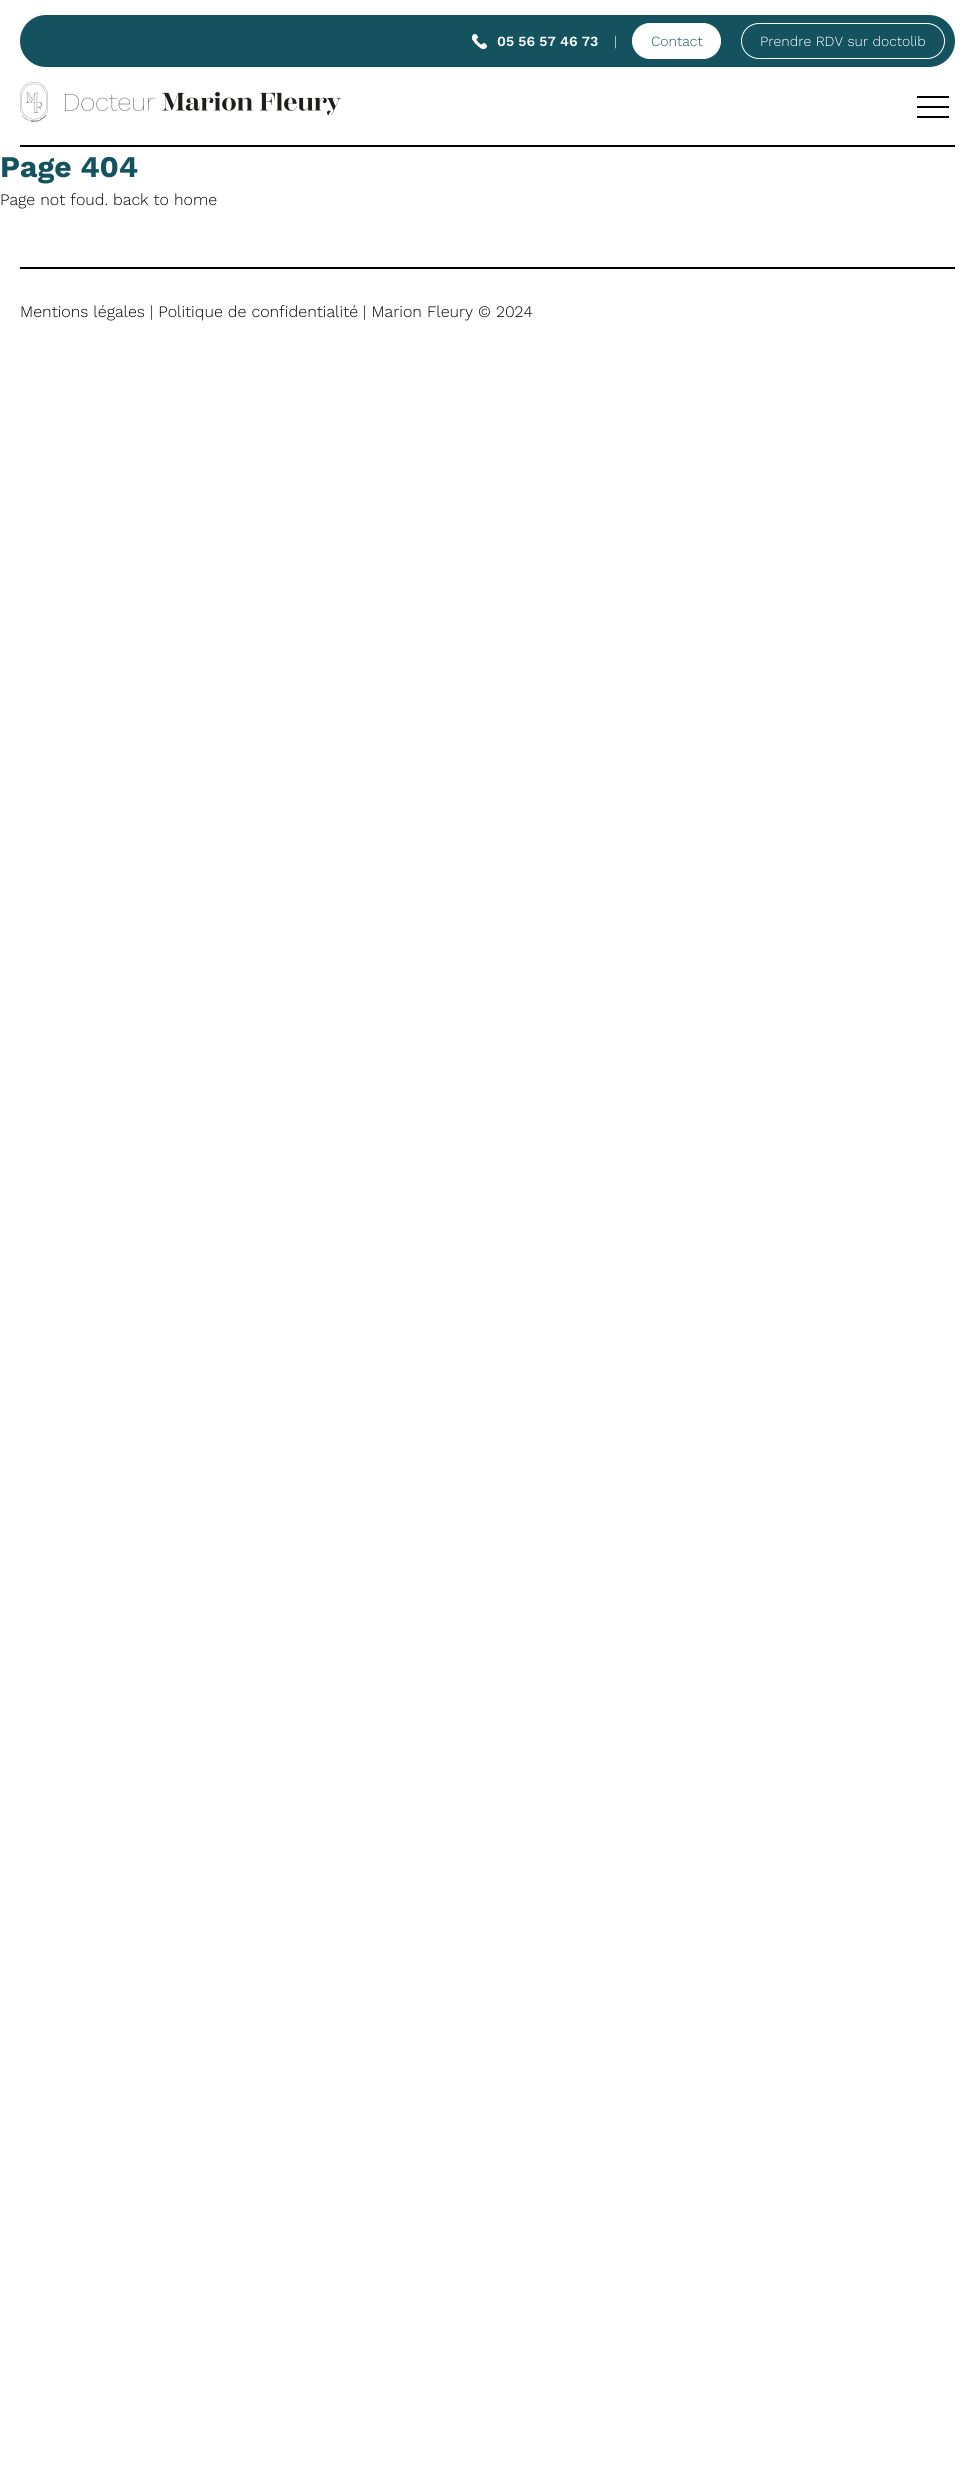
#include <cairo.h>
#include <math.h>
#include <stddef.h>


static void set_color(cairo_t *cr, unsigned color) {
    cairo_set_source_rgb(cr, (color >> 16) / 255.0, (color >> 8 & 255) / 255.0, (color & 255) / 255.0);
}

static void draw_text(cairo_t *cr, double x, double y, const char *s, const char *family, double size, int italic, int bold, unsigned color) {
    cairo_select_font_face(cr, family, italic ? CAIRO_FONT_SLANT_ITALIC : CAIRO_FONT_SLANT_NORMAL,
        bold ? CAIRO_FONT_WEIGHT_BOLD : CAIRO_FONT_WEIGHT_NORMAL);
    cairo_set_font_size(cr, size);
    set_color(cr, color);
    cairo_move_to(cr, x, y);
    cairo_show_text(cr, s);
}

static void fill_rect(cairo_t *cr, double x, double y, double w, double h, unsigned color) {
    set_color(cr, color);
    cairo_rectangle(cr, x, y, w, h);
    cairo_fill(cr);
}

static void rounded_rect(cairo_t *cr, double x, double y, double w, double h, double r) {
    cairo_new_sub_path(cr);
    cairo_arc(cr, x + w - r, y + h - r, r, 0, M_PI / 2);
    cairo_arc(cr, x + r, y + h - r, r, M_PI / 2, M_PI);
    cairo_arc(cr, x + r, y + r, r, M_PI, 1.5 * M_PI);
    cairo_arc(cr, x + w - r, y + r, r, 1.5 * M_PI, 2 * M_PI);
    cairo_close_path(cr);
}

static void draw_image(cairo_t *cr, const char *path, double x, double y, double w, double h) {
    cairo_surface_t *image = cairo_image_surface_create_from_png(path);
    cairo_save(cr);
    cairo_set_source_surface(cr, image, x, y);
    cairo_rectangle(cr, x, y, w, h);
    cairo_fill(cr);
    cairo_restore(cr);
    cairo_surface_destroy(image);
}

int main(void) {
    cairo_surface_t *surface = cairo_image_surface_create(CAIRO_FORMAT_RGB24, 975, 2470);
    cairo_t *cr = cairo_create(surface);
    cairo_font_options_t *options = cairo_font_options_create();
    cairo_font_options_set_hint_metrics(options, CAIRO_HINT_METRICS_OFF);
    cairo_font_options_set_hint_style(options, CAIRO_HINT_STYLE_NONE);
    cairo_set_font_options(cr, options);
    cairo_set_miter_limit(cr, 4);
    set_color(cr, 0xFFFFFF);
    cairo_paint(cr);
    set_color(cr, 0x145260);
    rounded_rect(cr, 20, 15, 935, 52, 26);
    cairo_fill(cr);
    draw_image(cr, "assets/img1.png", 472, 34, 15, 15);
    draw_text(cr, 497, 46, "05 56 57 46 73", "Work Sans SemiBold", 14, 0, 0, 0xFFFFFF);
    draw_text(cr, 614, 46, "|", "Work Sans Light", 14, 0, 0, 0xFFFFFF);
    rounded_rect(cr, 632.5, 23.5, 88, 35, 17.5);
    cairo_fill_preserve(cr);
    cairo_set_line_width(cr, 1);
    cairo_stroke(cr);
    draw_text(cr, 651, 46, "Contact", "Work Sans Light", 14, 0, 0, 0x145260);
    rounded_rect(cr, 741.5, 23.5, 203, 35, 17.5);
    set_color(cr, 0xFFFFFF);
    cairo_stroke(cr);
    draw_text(cr, 760, 46, "Prendre RDV sur doctolib", "Work Sans Light", 14, 0, 0, 0xFFFFFF);
    fill_rect(cr, 20, 145, 935, 2, 0x000000);
    draw_image(cr, "assets/img2.png", 20, 82, 321, 40);
    fill_rect(cr, 917, 106, 32, 2, 0x000000);
    fill_rect(cr, 917, 96, 32, 2, 0x000000);
    fill_rect(cr, 917, 116, 32, 2, 0x000000);
    draw_text(cr, 0, 177, "Page 404", "Work Sans", 30, 0, 1, 0x145260);
    draw_text(cr, 0, 205, "Page not foud. back to home", "Work Sans Light", 16, 0, 0, 0x000000);
    fill_rect(cr, 20, 267, 935, 2, 0x000000);
    draw_text(cr, 20, 317, "Mentions légales | Politique de confidentialité | Marion Fleury © 2024", "Work Sans Light", 16, 0, 0, 0x000000);
    cairo_surface_write_to_png(surface, "output.png");
    cairo_font_options_destroy(options);
    cairo_destroy(cr);
    cairo_surface_destroy(surface);
    return 0;
}
